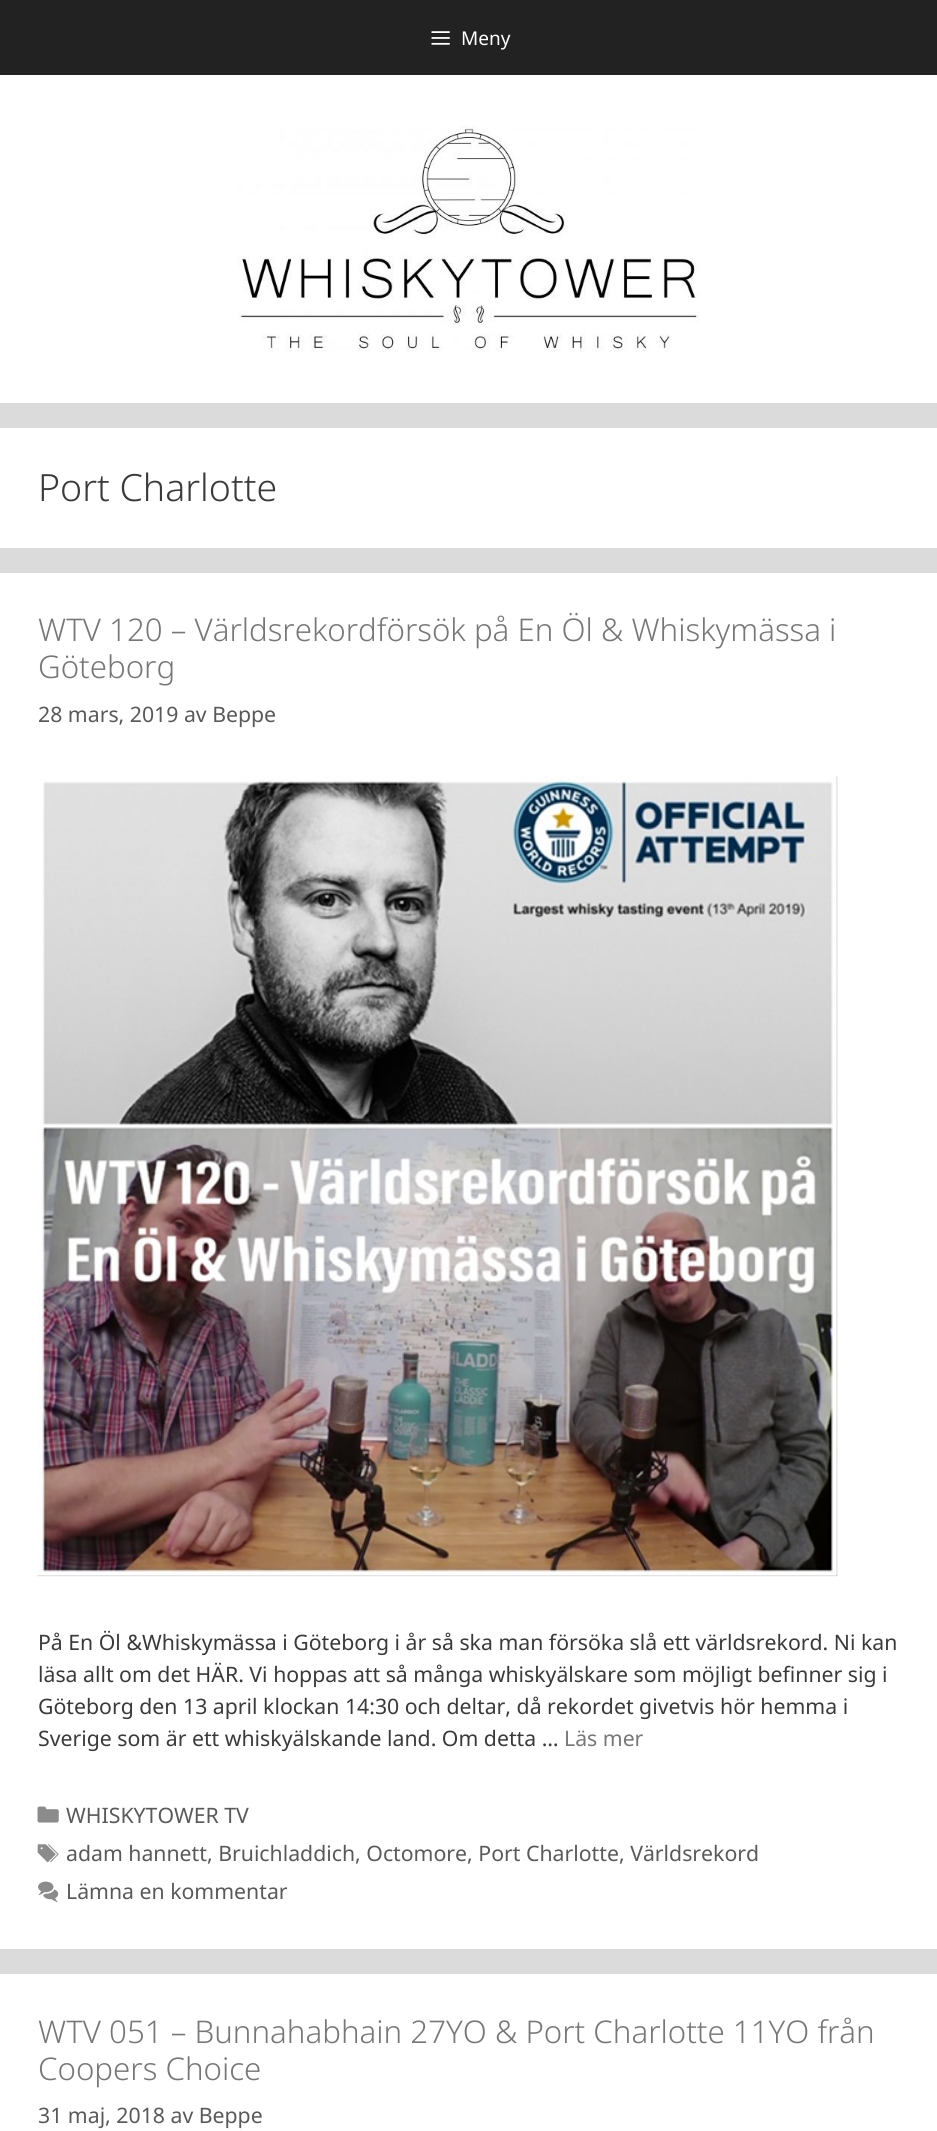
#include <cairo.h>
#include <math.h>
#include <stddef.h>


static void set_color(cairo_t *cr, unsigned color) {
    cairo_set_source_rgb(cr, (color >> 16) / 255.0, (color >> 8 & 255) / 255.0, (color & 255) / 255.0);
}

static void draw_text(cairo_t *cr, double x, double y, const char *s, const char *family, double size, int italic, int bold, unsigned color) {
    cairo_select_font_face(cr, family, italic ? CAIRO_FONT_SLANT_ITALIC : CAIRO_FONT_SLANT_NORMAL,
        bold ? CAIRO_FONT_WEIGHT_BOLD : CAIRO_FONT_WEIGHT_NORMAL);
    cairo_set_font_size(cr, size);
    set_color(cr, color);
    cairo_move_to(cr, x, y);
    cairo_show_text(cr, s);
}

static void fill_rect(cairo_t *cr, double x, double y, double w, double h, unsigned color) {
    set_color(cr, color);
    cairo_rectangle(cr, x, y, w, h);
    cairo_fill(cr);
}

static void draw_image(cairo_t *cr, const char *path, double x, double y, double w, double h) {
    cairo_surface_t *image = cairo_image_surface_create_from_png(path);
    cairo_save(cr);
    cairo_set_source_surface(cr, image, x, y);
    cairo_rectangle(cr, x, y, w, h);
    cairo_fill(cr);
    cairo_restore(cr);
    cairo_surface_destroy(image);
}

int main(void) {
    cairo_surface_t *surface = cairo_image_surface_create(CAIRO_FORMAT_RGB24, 937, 2131);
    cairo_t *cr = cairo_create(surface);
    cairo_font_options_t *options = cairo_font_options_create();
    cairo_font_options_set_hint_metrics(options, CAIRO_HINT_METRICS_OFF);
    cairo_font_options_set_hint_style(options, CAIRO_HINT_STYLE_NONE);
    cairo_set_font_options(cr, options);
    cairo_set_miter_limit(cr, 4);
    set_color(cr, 0xDBDBDB);
    cairo_paint(cr);
    fill_rect(cr, 0, 0, 937, 75, 0x222222);
    draw_image(cr, "assets/img1.png", 431, 31, 19, 14);
    draw_text(cr, 461, 45, "Meny", "Noto Sans", 19, 0, 0, 0xFFFFFF);
    fill_rect(cr, 0, 75, 937, 328, 0xFFFFFF);
    draw_image(cr, "assets/img2.png", 238, 125, 462, 228);
    fill_rect(cr, 0, 428, 937, 120, 0xFFFFFF);
    draw_text(cr, 38, 501, "Port Charlotte", "Noto Sans Light", 37.5, 0, 0, 0x3A3A3A);
    fill_rect(cr, 0, 573, 937, 1376, 0xFFFFFF);
    draw_text(cr, 38, 641, "WTV 120 – Världsrekordförsök på En Öl & Whiskymässa i", "Noto Sans Light", 31.25, 0, 0, 0x777777);
    draw_text(cr, 38, 678, "Göteborg", "Noto Sans Light", 31.25, 0, 0, 0x777777);
    draw_text(cr, 38, 722, "28 mars, 2019 av Beppe", "Noto Sans", 21.25, 0, 0, 0x595959);
    draw_image(cr, "assets/img3.png", 37, 776, 801, 801);
    draw_text(cr, 38, 1650, "På En Öl &Whiskymässa i Göteborg i år så ska man försöka slå ett världsrekord. Ni kan", "Noto Sans", 21.25, 0, 0, 0x3A3A3A);
    draw_text(cr, 38, 1682, "läsa allt om det HÄR. Vi hoppas att så många whiskyälskare som möjligt befinner sig i", "Noto Sans", 21.25, 0, 0, 0x3A3A3A);
    draw_text(cr, 38, 1714, "Göteborg den 13 april klockan 14:30 och deltar, då rekordet givetvis hör hemma i", "Noto Sans", 21.25, 0, 0, 0x3A3A3A);
    draw_text(cr, 38, 1746, "Sverige som är ett whiskyälskande land. Om detta …", "Noto Sans", 21.25, 0, 0, 0x3A3A3A);
    draw_text(cr, 564, 1746, "Läs mer", "Noto Sans", 21.25, 0, 0, 0x777777);
    draw_image(cr, "assets/img4.png", 37, 1806, 22, 17);
    draw_text(cr, 66, 1823, "WHISKYTOWER TV", "Noto Sans", 21.25, 0, 0, 0x595959);
    draw_image(cr, "assets/img5.png", 37, 1844, 22, 19);
    draw_text(cr, 66, 1861, "adam hannett, Bruichladdich, Octomore, Port Charlotte, Världsrekord", "Noto Sans", 21.25, 0, 0, 0x595959);
    draw_image(cr, "assets/img6.png", 38, 1881, 21, 22);
    draw_text(cr, 66, 1899, "Lämna en kommentar", "Noto Sans", 21.25, 0, 0, 0x595959);
    fill_rect(cr, 0, 1974, 937, 157, 0xFFFFFF);
    draw_text(cr, 38, 2043, "WTV 051 – Bunnahabhain 27YO & Port Charlotte 11YO från", "Noto Sans Light", 31.25, 0, 0, 0x777777);
    draw_text(cr, 38, 2080, "Coopers Choice", "Noto Sans Light", 31.25, 0, 0, 0x777777);
    draw_text(cr, 38, 2123, "31 maj, 2018 av Beppe", "Noto Sans", 21.25, 0, 0, 0x595959);
    cairo_surface_write_to_png(surface, "output.png");
    cairo_font_options_destroy(options);
    cairo_destroy(cr);
    cairo_surface_destroy(surface);
    return 0;
}
